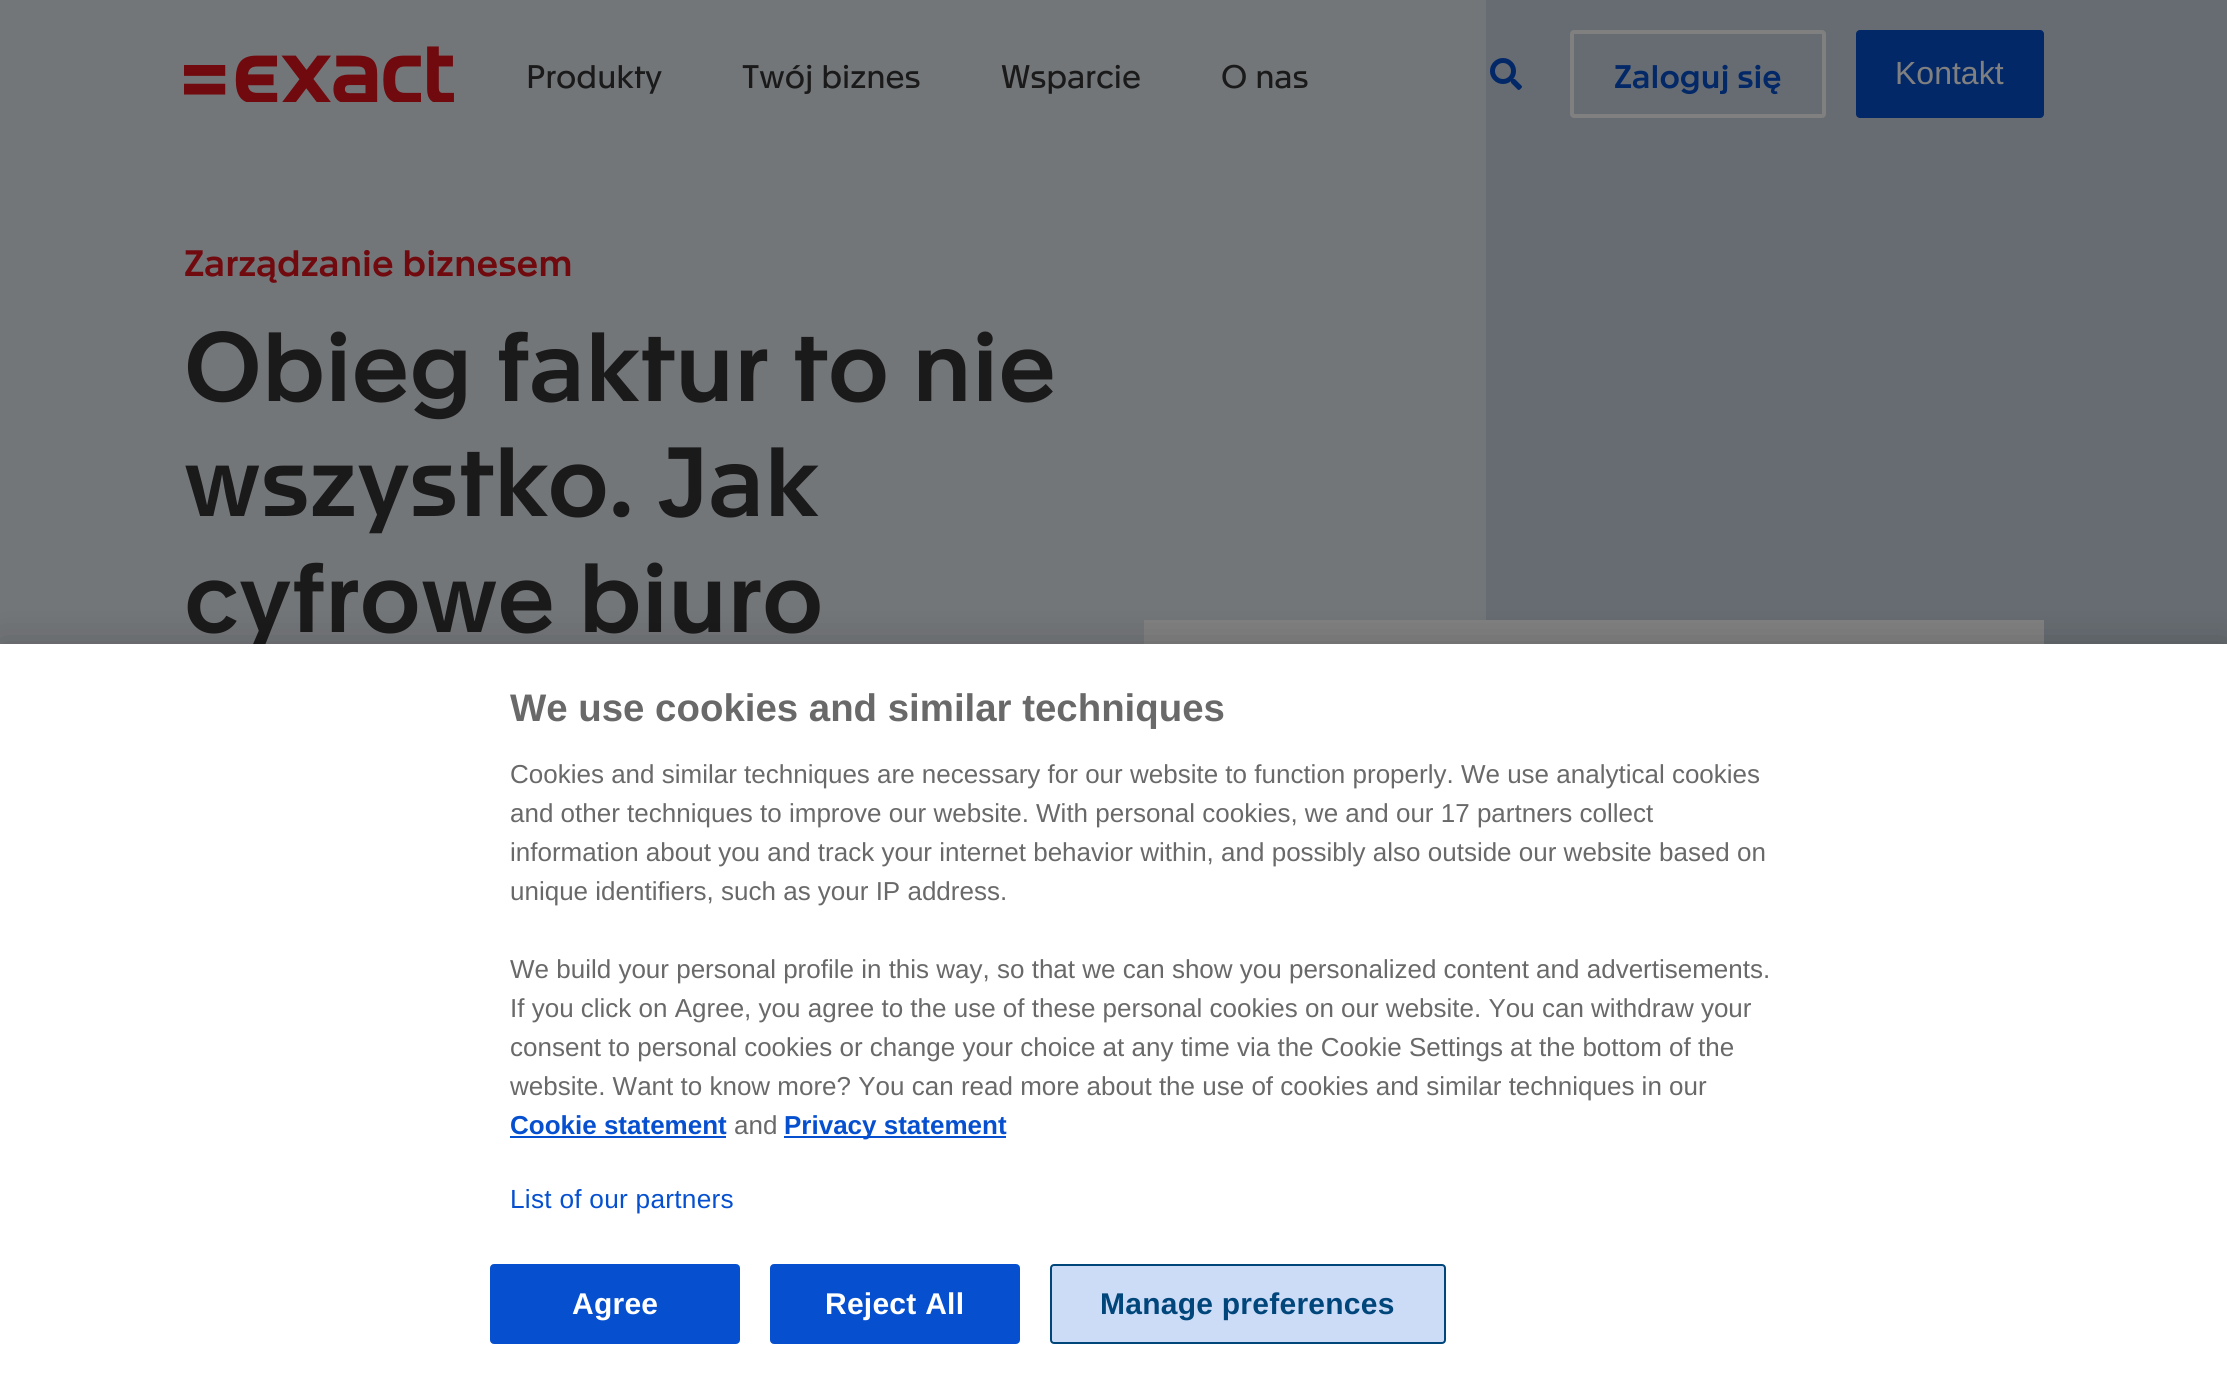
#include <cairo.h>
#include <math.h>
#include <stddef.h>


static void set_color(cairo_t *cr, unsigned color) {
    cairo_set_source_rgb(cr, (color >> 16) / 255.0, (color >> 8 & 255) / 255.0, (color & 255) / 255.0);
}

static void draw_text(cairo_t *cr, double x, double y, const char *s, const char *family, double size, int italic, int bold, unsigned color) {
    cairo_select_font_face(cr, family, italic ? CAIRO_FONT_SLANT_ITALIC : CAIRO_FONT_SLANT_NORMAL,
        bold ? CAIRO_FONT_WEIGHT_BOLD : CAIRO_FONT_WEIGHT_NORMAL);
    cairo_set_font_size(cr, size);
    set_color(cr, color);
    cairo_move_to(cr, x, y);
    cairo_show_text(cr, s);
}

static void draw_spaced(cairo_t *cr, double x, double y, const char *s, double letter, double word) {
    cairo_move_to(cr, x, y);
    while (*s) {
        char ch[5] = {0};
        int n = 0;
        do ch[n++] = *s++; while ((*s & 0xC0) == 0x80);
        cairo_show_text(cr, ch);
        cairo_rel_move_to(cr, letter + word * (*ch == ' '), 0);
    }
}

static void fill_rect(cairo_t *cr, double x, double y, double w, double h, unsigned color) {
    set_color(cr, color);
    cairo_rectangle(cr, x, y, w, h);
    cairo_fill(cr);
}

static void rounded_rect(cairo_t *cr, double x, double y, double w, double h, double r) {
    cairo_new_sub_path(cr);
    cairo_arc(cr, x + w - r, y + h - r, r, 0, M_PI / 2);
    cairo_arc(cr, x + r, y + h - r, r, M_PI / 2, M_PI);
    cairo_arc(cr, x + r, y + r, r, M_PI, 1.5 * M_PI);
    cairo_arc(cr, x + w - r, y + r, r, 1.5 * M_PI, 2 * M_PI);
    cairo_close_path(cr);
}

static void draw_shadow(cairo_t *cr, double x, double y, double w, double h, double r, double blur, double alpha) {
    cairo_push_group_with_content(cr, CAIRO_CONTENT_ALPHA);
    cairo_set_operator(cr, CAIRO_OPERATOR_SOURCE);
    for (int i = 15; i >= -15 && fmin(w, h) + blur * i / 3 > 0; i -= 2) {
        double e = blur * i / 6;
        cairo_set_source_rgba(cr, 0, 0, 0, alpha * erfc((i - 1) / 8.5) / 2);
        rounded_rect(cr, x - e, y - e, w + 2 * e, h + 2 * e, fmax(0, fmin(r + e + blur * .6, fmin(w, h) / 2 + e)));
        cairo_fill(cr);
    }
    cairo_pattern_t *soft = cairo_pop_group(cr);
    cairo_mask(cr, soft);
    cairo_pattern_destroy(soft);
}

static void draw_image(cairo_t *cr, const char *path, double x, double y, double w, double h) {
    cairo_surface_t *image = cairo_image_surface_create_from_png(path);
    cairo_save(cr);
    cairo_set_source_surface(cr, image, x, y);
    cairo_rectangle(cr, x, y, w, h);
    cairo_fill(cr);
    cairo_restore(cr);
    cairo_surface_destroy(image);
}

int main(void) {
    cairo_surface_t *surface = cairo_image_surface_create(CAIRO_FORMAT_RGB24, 2227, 1376);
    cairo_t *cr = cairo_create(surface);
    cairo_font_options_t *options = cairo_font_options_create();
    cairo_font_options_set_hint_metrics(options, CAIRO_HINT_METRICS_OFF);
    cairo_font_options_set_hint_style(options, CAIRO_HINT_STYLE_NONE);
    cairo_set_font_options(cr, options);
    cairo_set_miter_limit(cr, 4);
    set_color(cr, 0x737679);
    cairo_paint(cr);
    draw_image(cr, "assets/img1.png", 184, 46, 270, 56);
    draw_text(cr, 526, 88, "Produkty", "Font", 32, 0, 0, 0x1A1A1A);
    draw_text(cr, 742, 88, "Twój biznes", "Font", 32, 0, 0, 0x1A1A1A);
    draw_text(cr, 1001, 88, "Wsparcie", "Font", 32, 0, 0, 0x1A1A1A);
    draw_text(cr, 1221, 88, "O nas", "Font", 32, 0, 0, 0x1A1A1A);
    fill_rect(cr, 1486, 0, 741, 644, 0x666C71);
    draw_image(cr, "assets/img2.png", 1490, 58, 32, 32);
    rounded_rect(cr, 1572, 32, 252, 84, 2);
    set_color(cr, 0x808080);
    cairo_set_line_width(cr, 4);
    cairo_stroke(cr);
    draw_text(cr, 1614, 88, "Zaloguj się", "Font Medium", 32, 0, 0, 0x032868);
    rounded_rect(cr, 1856, 30, 188, 88, 4);
    cairo_fill(cr);
    draw_text(cr, 1895, 84, "Kontakt", "Liberation Sans", 32, 0, 0, 0x808080);
    draw_text(cr, 184, 276, "Zarządzanie biznesem", "Font Medium", 36, 0, 0, 0x710A0F);
    draw_text(cr, 184, 401, "Obieg faktur to nie", "Font Medium", 96, 0, 0, 0x1A1A1A);
    draw_text(cr, 184, 516, "wszystko. Jak", "Font Medium", 96, 0, 0, 0x1A1A1A);
    draw_text(cr, 184, 632, "cyfrowe biuro", "Font Medium", 96, 0, 0, 0x1A1A1A);
    fill_rect(cr, 1144, 620, 900, 24, 0x808080);
    set_color(cr, 0x000000);
    draw_shadow(cr, 0, 644, 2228, 732, 0, 18, 0.2);
    fill_rect(cr, 0, 644, 2227, 732, 0xFFFFFF);
    draw_text(cr, 510, 721, "We use cookies and similar techniques", "Liberation Sans", 38.4, 0, 1, 0x696969);
    draw_text(cr, 510, 783, "Cookies and similar techniques are necessary for our website to function properly. We use analytical cookies", "Liberation Sans", 26, 0, 0, 0x696969);
    draw_text(cr, 510, 822, "and other techniques to improve our website. With personal cookies, we and our 17 partners collect", "Liberation Sans", 26, 0, 0, 0x696969);
    draw_text(cr, 510, 861, "information about you and track your internet behavior within, and possibly also outside our website based on", "Liberation Sans", 26, 0, 0, 0x696969);
    draw_text(cr, 510, 900, "unique identifiers, such as your IP address.", "Liberation Sans", 26, 0, 0, 0x696969);
    draw_text(cr, 510, 978, "We build your personal profile in this way, so that we can show you personalized content and advertisements.", "Liberation Sans", 26, 0, 0, 0x696969);
    draw_text(cr, 510, 1017, "If you click on Agree, you agree to the use of these personal cookies on our website. You can withdraw your", "Liberation Sans", 26, 0, 0, 0x696969);
    draw_text(cr, 510, 1056, "consent to personal cookies or change your choice at any time via the Cookie Settings at the bottom of the", "Liberation Sans", 26, 0, 0, 0x696969);
    draw_text(cr, 510, 1095, "website. Want to know more? You can read more about the use of cookies and similar techniques in our", "Liberation Sans", 26, 0, 0, 0x696969);
    draw_text(cr, 510, 1134, "Cookie statement", "Liberation Sans", 26, 0, 1, 0x0650D0);
    fill_rect(cr, 510, 1136, 216, 2, 0x0650D0);
    draw_text(cr, 734, 1134, "and", "Liberation Sans", 26, 0, 0, 0x696969);
    fill_rect(cr, 784, 1136, 222, 2, 0x0650D0);
    draw_text(cr, 784, 1134, "Privacy statement", "Liberation Sans", 26, 0, 1, 0x0650D0);
    cairo_select_font_face(cr, "Liberation Sans", CAIRO_FONT_SLANT_NORMAL, CAIRO_FONT_WEIGHT_NORMAL);
    cairo_set_font_size(cr, 26.25);
    draw_spaced(cr, 510, 1208, "List of our partners", 0.25, 0);
    rounded_rect(cr, 491, 1265, 248, 78, 3);
    cairo_fill_preserve(cr);
    cairo_set_line_width(cr, 2);
    cairo_stroke(cr);
    cairo_select_font_face(cr, "Liberation Sans", CAIRO_FONT_SLANT_NORMAL, CAIRO_FONT_WEIGHT_BOLD);
    cairo_set_font_size(cr, 30);
    set_color(cr, 0xFFFFFF);
    draw_spaced(cr, 572, 1314, "Agree", 0.25, 0);
    set_color(cr, 0x0650D0);
    rounded_rect(cr, 771, 1265, 248, 78, 3);
    cairo_fill_preserve(cr);
    cairo_stroke(cr);
    set_color(cr, 0xFFFFFF);
    draw_spaced(cr, 825, 1314, "Reject All", 0.25, 0);
    set_color(cr, 0xCDDCF6);
    rounded_rect(cr, 1051, 1265, 394, 78, 3);
    cairo_fill_preserve(cr);
    set_color(cr, 0x00467B);
    cairo_stroke(cr);
    draw_spaced(cr, 1100, 1314, "Manage preferences", 0.25, 0);
    cairo_surface_write_to_png(surface, "output.png");
    cairo_font_options_destroy(options);
    cairo_destroy(cr);
    cairo_surface_destroy(surface);
    return 0;
}
